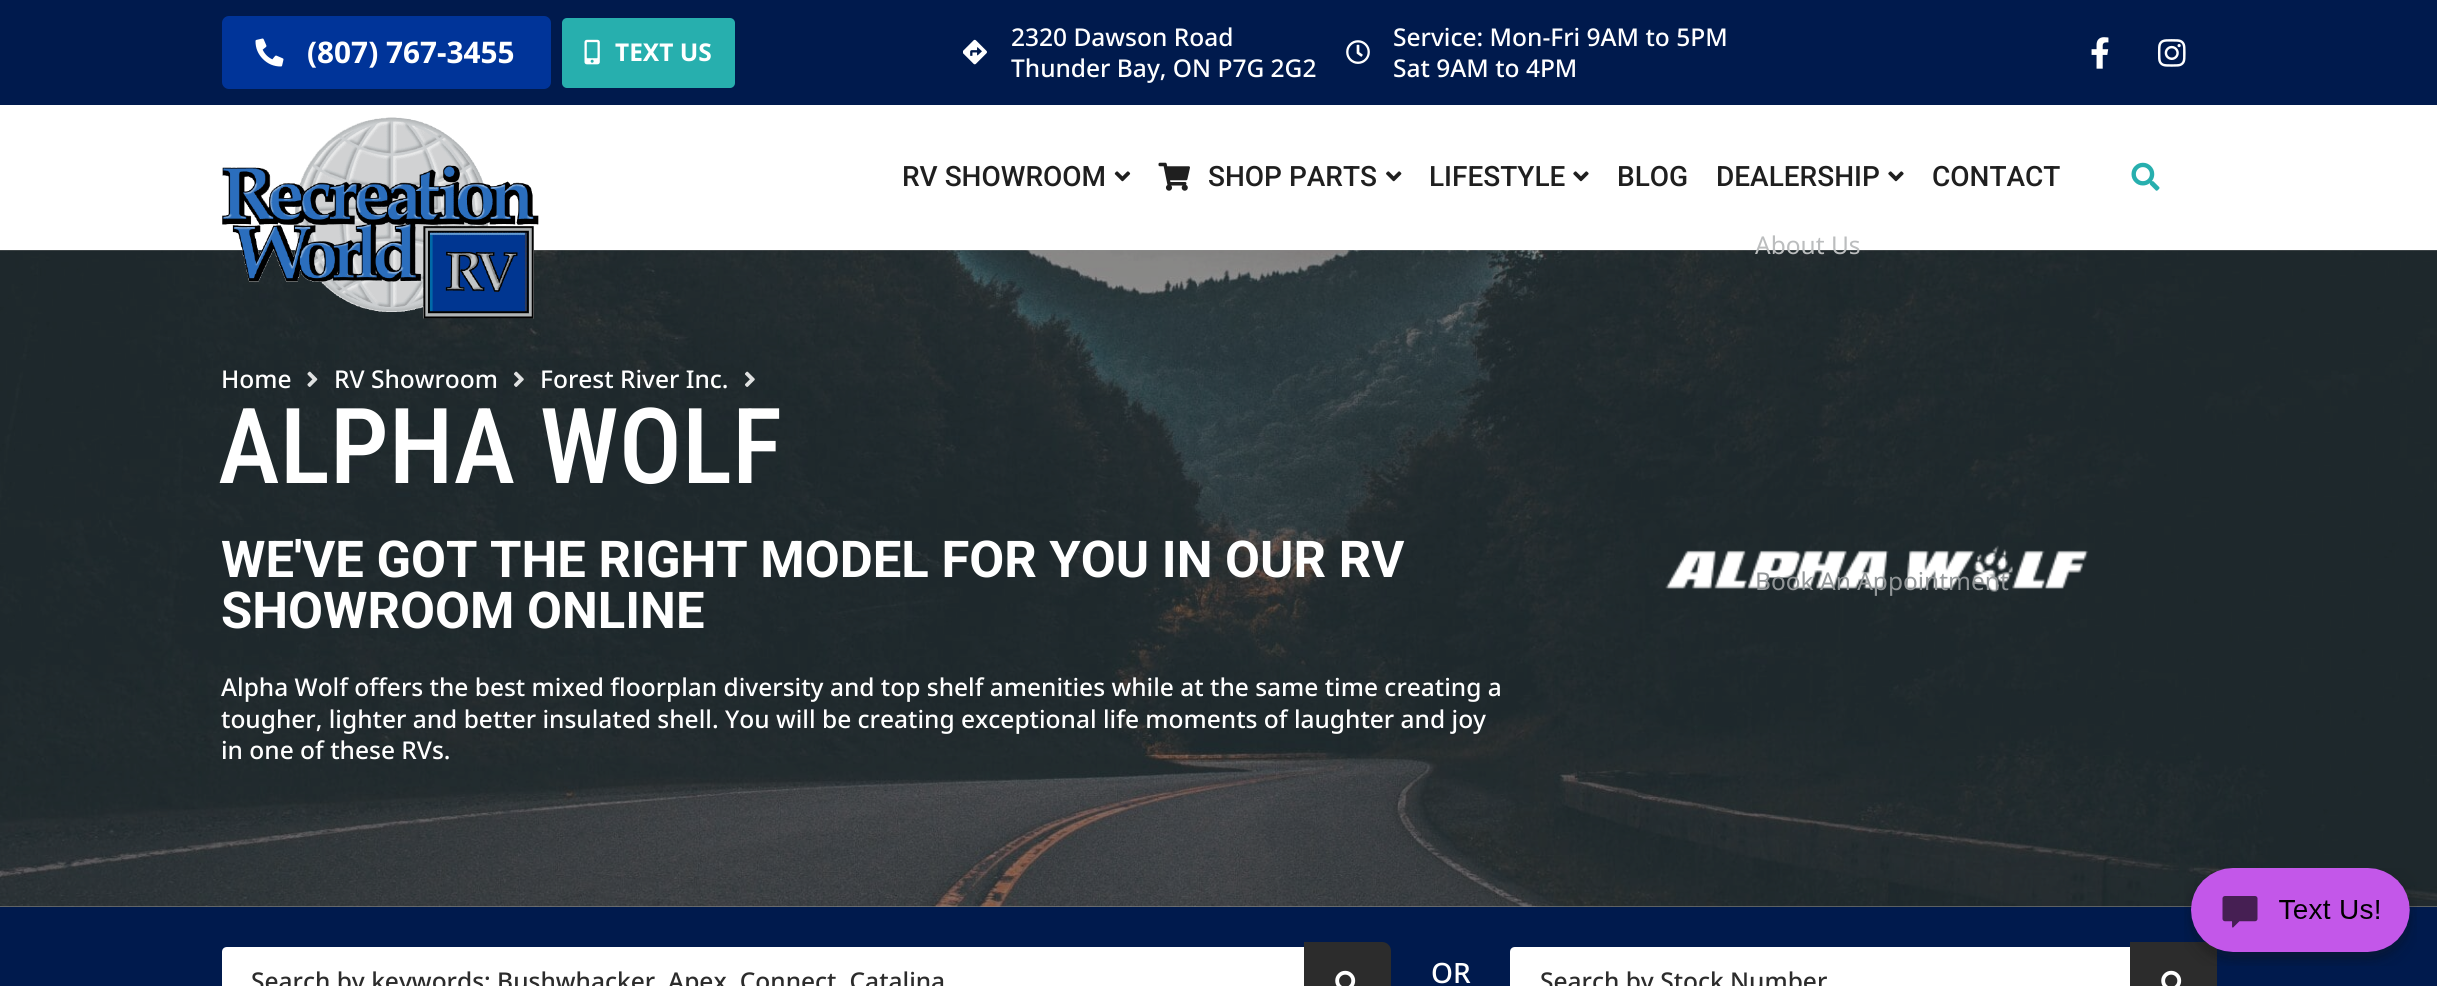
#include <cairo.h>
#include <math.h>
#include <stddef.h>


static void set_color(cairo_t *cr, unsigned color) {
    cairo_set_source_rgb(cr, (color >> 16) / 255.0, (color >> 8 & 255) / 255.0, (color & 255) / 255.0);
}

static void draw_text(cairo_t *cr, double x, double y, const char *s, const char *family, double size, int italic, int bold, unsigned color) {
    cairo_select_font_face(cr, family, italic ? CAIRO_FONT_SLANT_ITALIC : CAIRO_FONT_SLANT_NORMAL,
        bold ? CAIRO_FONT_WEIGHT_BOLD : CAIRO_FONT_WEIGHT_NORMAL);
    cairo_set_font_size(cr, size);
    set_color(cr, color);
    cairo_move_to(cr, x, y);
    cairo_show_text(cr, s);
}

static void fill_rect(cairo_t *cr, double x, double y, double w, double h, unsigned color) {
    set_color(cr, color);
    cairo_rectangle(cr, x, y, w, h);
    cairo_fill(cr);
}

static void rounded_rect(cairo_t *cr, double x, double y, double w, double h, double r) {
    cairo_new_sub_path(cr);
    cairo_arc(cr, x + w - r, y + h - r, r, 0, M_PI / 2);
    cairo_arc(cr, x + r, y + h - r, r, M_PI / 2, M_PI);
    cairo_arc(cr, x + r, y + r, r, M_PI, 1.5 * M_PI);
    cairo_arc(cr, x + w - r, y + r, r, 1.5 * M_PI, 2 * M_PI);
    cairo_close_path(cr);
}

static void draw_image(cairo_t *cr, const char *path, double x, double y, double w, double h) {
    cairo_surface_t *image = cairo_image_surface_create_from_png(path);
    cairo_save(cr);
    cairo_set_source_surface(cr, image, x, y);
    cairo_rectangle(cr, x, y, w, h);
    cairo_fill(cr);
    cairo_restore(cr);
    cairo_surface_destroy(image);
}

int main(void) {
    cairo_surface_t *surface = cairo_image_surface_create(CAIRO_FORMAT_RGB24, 2437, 986);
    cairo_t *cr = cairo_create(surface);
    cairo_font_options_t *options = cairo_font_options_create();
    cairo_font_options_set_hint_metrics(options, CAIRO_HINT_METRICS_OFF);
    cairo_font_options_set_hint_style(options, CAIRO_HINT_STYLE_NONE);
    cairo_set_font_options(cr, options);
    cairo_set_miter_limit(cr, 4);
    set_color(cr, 0xFFFFFF);
    cairo_paint(cr);
    fill_rect(cr, 0, 250, 2437, 657, 0x969696);
    fill_rect(cr, 0, 0, 2437, 105, 0x001A4D);
    set_color(cr, 0x003499);
    rounded_rect(cr, 222, 16, 329, 73, 7);
    cairo_fill(cr);
    draw_image(cr, "assets/img1.png", 255, 38, 29, 29);
    draw_text(cr, 307, 63, "(807) 767-3455", "Noto Sans", 29.75, 0, 1, 0xFFFFFF);
    set_color(cr, 0x27AFAE);
    rounded_rect(cr, 562, 18, 173, 70, 5);
    cairo_fill(cr);
    draw_image(cr, "assets/img2.png", 584, 39, 16, 26);
    draw_text(cr, 615, 61, "TEXT US", "Noto Sans", 24.5, 0, 1, 0xFFFFFF);
    draw_image(cr, "assets/img3.png", 963, 39, 24, 26);
    draw_text(cr, 1011, 46, "2320 Dawson Road", "Noto Sans Medium", 24.5, 0, 0, 0xFFFFFF);
    draw_text(cr, 1011, 77, "Thunder Bay, ON P7G 2G2", "Noto Sans Medium", 24.5, 0, 0, 0xFFFFFF);
    draw_image(cr, "assets/img4.png", 1346, 40, 24, 24);
    draw_text(cr, 1393, 46, "Service: Mon-Fri 9AM to 5PM", "Noto Sans Medium", 24.5, 0, 0, 0xFFFFFF);
    draw_text(cr, 1393, 77, "Sat 9AM to 4PM", "Noto Sans Medium", 24.5, 0, 0, 0xFFFFFF);
    draw_image(cr, "assets/img5.png", 2091, 37, 18, 32);
    draw_image(cr, "assets/img6.png", 2157, 39, 29, 28);
    draw_image(cr, "assets/img13.png", 0, 250, 2437, 657);
    draw_image(cr, "assets/img7.png", 222, 117, 317, 202);
    draw_text(cr, 902, 186, "RV SHOWROOM", "Roboto Medium", 28, 0, 0, 0x1F1F1F);
    draw_image(cr, "assets/img8.png", 1114, 171, 17, 11);
    draw_image(cr, "assets/img9.png", 1158, 162, 32, 29);
    draw_text(cr, 1208, 186, "SHOP PARTS", "Roboto Medium", 28, 0, 0, 0x1F1F1F);
    draw_image(cr, "assets/img10.png", 1386, 171, 16, 11);
    draw_text(cr, 1429, 186, "LIFESTYLE", "Roboto Medium", 28, 0, 0, 0x1F1F1F);
    draw_image(cr, "assets/img11.png", 1573, 171, 16, 11);
    draw_text(cr, 1617, 186, "BLOG", "Roboto Medium", 28, 0, 0, 0x1F1F1F);
    draw_text(cr, 1716, 186, "DEALERSHIP", "Roboto Medium", 28, 0, 0, 0x1F1F1F);
    draw_image(cr, "assets/img11.png", 1888, 171, 16, 11);
    draw_text(cr, 1755, 254, "About Us", "Noto Sans", 24.5, 0, 0, 0xBBBDBE);
    draw_image(cr, "assets/img17.png", 1665, 545, 424, 47);
    draw_text(cr, 1755, 590, "Book An Appointment", "Noto Sans", 24.5, 0, 0, 0x929698);
    draw_text(cr, 1932, 186, "CONTACT", "Roboto Medium", 28, 0, 0, 0x1F1F1F);
    draw_image(cr, "assets/img12.png", 2131, 162, 29, 29);
    draw_text(cr, 221, 388, "Home", "Noto Sans Medium", 24.5, 0, 0, 0xFFFFFF);
    draw_image(cr, "assets/img14.png", 307, 371, 11, 16);
    draw_text(cr, 334, 388, "RV Showroom", "Noto Sans Medium", 24.5, 0, 0, 0xFFFFFF);
    draw_image(cr, "assets/img15.png", 514, 371, 10, 16);
    draw_text(cr, 540, 388, "Forest River Inc.", "Noto Sans Medium", 24.5, 0, 0, 0xFFFFFF);
    draw_image(cr, "assets/img16.png", 745, 371, 10, 16);
    draw_text(cr, 218, 483, "ALPHA WOLF", "Roboto Condensed Medium", 105, 0, 0, 0xFFFFFF);
    draw_text(cr, 221, 577, "WE'VE GOT THE RIGHT MODEL FOR YOU IN OUR RV", "Roboto", 50.75, 0, 1, 0xFFFFFF);
    draw_text(cr, 221, 628, "SHOWROOM ONLINE", "Roboto", 50.75, 0, 1, 0xFFFFFF);
    draw_text(cr, 221, 696, "Alpha Wolf offers the best mixed floorplan diversity and top shelf amenities while at the same time creating a", "Noto Sans Medium", 24.5, 0, 0, 0xFFFFFF);
    draw_text(cr, 221, 728, "tougher, lighter and better insulated shell. You will be creating exceptional life moments of laughter and joy", "Noto Sans Medium", 24.5, 0, 0, 0xFFFFFF);
    draw_text(cr, 221, 759, "in one of these RVs.", "Noto Sans Medium", 24.5, 0, 0, 0xFFFFFF);
    fill_rect(cr, 0, 907, 2437, 79, 0x001A4D);
    set_color(cr, 0xFFFFFF);
    cairo_new_path(cr);
    cairo_move_to(cr, 227, 947);
    cairo_line_to(cr, 1304, 947);
    cairo_line_to(cr, 1304, 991);
    cairo_line_to(cr, 227, 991);
    cairo_curve_to(cr, 224, 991, 222, 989, 222, 986);
    cairo_line_to(cr, 222, 952);
    cairo_curve_to(cr, 222, 949, 224, 947, 227, 947);
    cairo_close_path(cr);
    cairo_fill(cr);
    draw_text(cr, 251, 990, "Search by keywords: Bushwhacker, Apex, Connect, Catalina", "Noto Sans Medium", 24.5, 0, 0, 0x2C2C2C);
    cairo_new_path(cr);
    cairo_move_to(cr, 1304, 942);
    cairo_line_to(cr, 1382, 942);
    cairo_curve_to(cr, 1387, 942, 1391, 946, 1391, 951);
    cairo_line_to(cr, 1391, 986);
    cairo_curve_to(cr, 1391, 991, 1387, 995, 1382, 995);
    cairo_line_to(cr, 1304, 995);
    cairo_close_path(cr);
    cairo_fill(cr);
    draw_image(cr, "assets/img18.png", 1335, 970, 21, 16);
    draw_text(cr, 1431, 983, "OR", "Noto Sans Medium", 28, 0, 0, 0xFFFFFF);
    cairo_new_path(cr);
    cairo_move_to(cr, 1515, 947);
    cairo_line_to(cr, 2130, 947);
    cairo_line_to(cr, 2130, 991);
    cairo_line_to(cr, 1515, 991);
    cairo_curve_to(cr, 1512, 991, 1510, 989, 1510, 986);
    cairo_line_to(cr, 1510, 952);
    cairo_curve_to(cr, 1510, 949, 1512, 947, 1515, 947);
    cairo_close_path(cr);
    cairo_fill(cr);
    draw_text(cr, 1540, 990, "Search by Stock Number", "Noto Sans Medium", 24.5, 0, 0, 0x2C2C2C);
    cairo_new_path(cr);
    cairo_move_to(cr, 2130, 942);
    cairo_line_to(cr, 2208, 942);
    cairo_curve_to(cr, 2213, 942, 2217, 946, 2217, 951);
    cairo_line_to(cr, 2217, 986);
    cairo_curve_to(cr, 2217, 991, 2213, 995, 2208, 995);
    cairo_line_to(cr, 2130, 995);
    cairo_close_path(cr);
    cairo_fill(cr);
    draw_image(cr, "assets/img18.png", 2161, 970, 21, 16);
    draw_image(cr, "assets/img19.png", 2184, 868, 233, 98);
    cairo_surface_write_to_png(surface, "output.png");
    cairo_font_options_destroy(options);
    cairo_destroy(cr);
    cairo_surface_destroy(surface);
    return 0;
}
